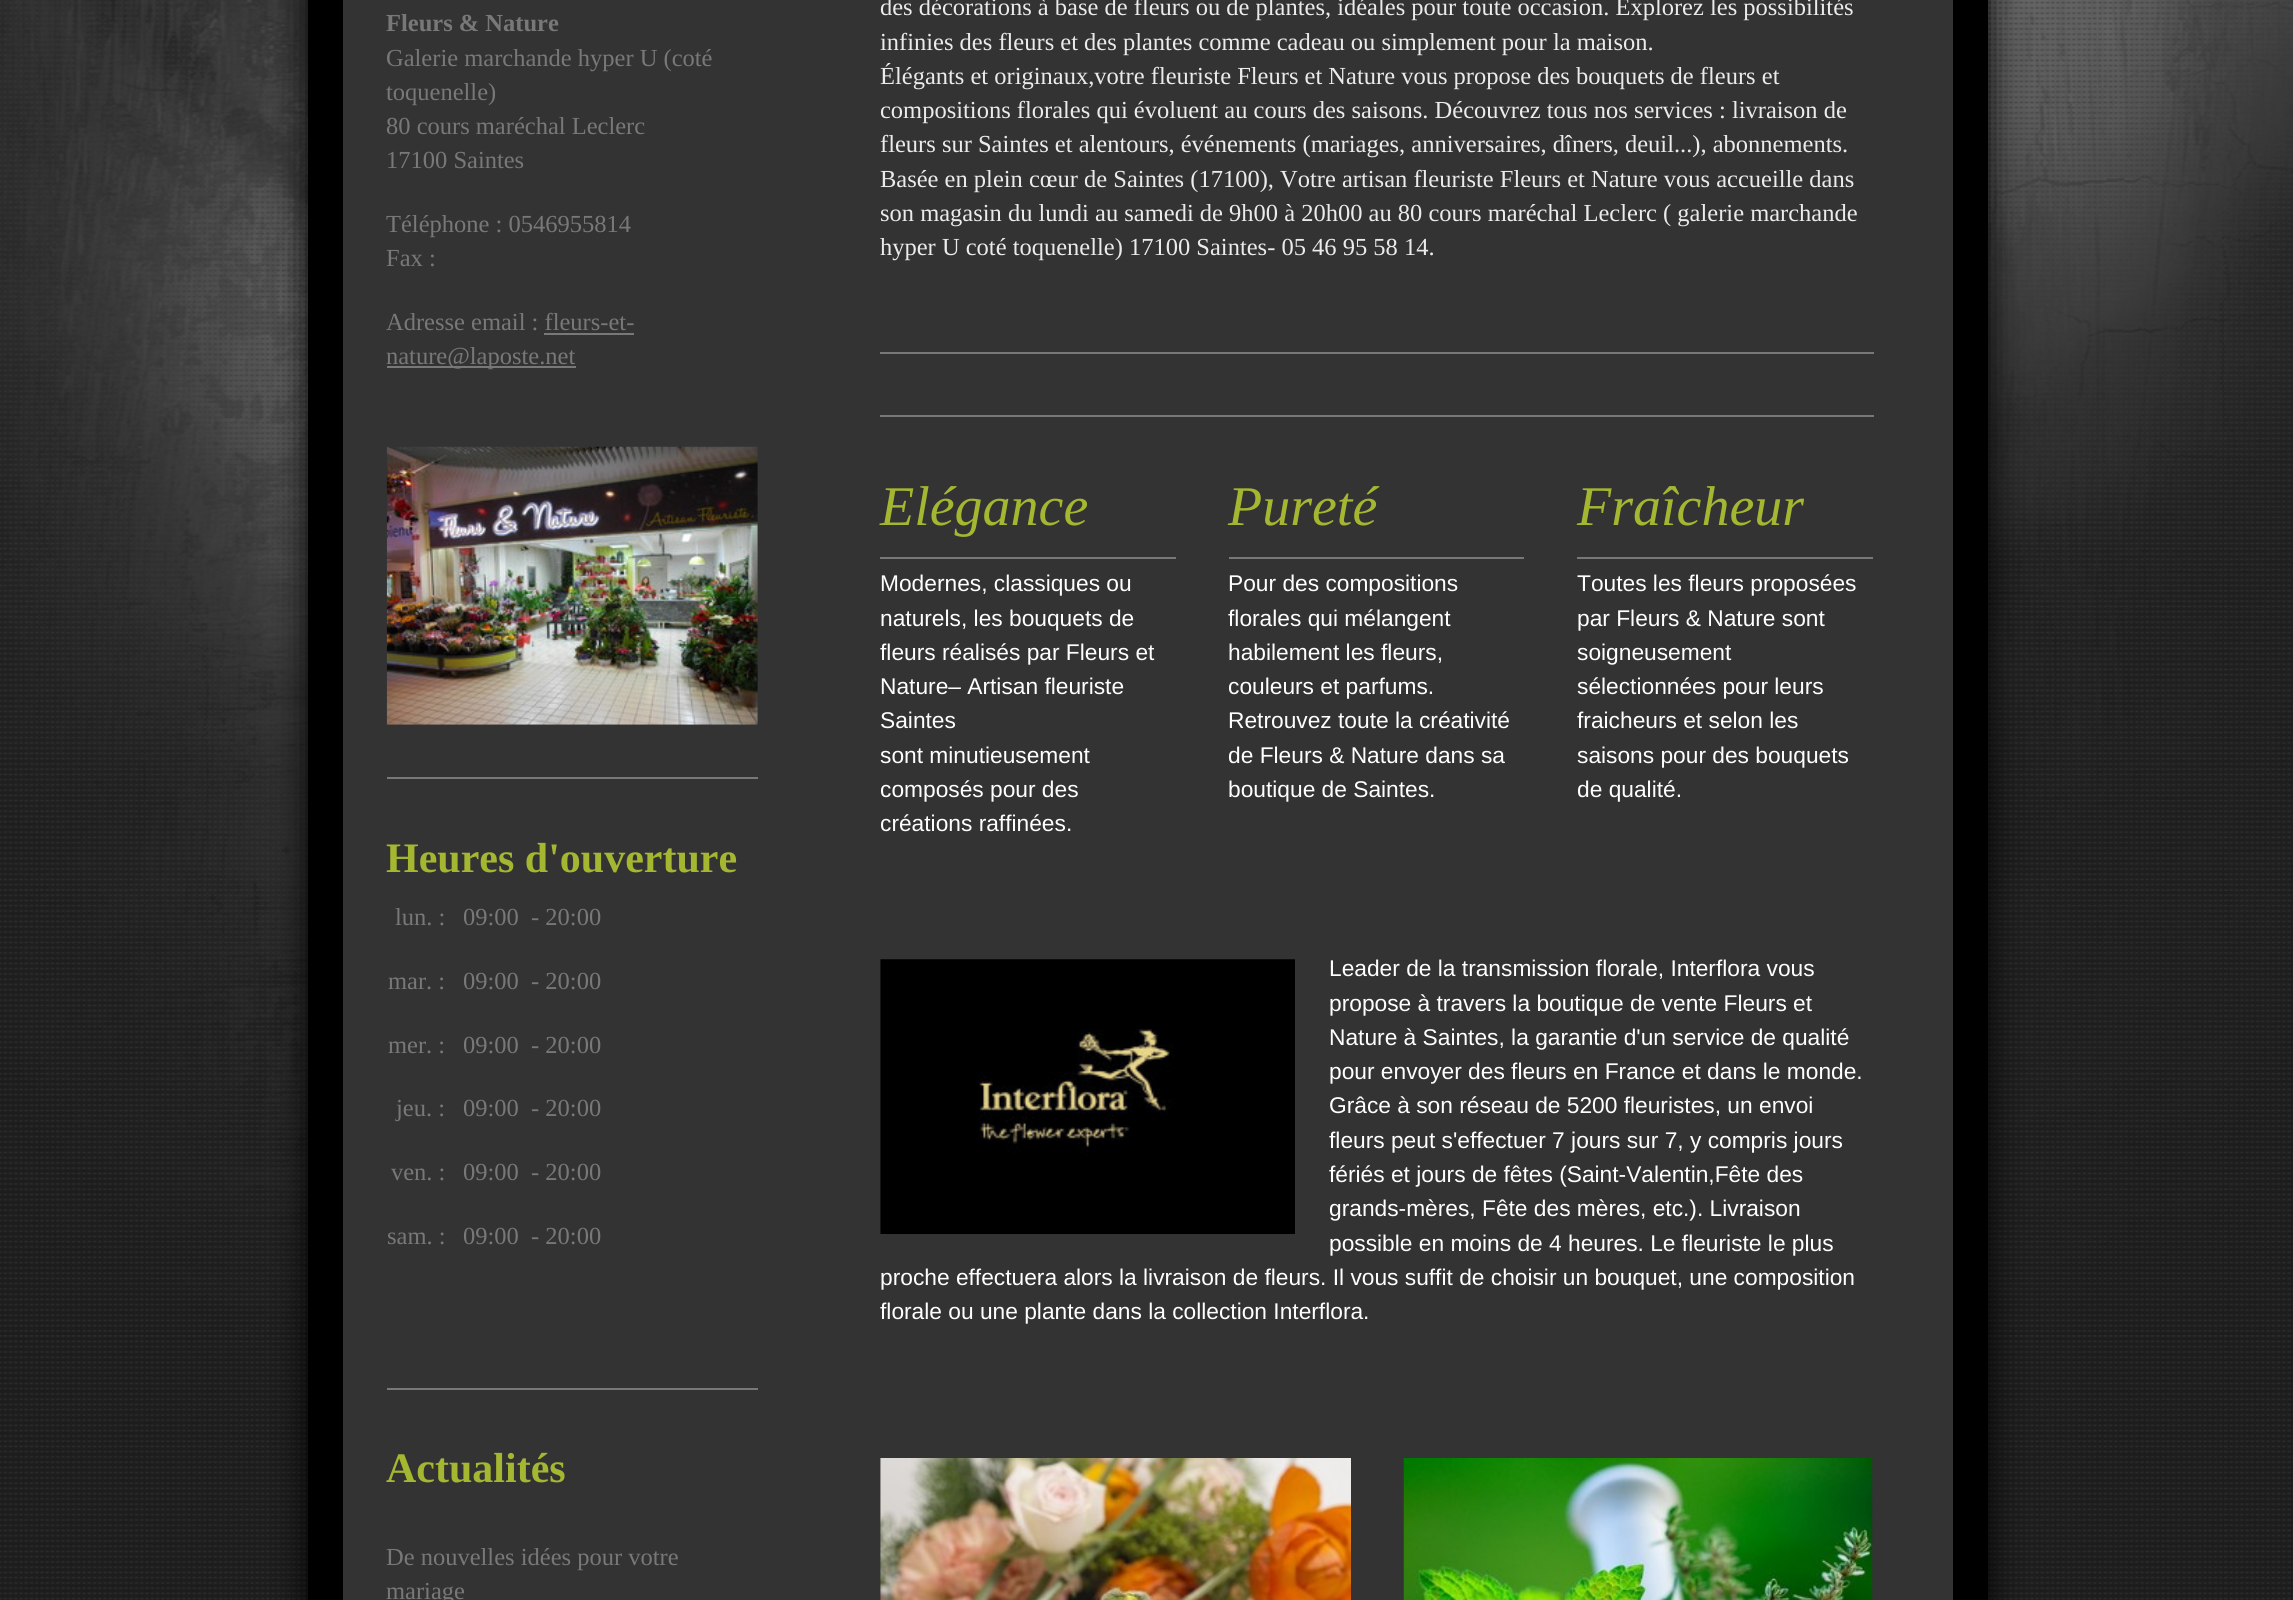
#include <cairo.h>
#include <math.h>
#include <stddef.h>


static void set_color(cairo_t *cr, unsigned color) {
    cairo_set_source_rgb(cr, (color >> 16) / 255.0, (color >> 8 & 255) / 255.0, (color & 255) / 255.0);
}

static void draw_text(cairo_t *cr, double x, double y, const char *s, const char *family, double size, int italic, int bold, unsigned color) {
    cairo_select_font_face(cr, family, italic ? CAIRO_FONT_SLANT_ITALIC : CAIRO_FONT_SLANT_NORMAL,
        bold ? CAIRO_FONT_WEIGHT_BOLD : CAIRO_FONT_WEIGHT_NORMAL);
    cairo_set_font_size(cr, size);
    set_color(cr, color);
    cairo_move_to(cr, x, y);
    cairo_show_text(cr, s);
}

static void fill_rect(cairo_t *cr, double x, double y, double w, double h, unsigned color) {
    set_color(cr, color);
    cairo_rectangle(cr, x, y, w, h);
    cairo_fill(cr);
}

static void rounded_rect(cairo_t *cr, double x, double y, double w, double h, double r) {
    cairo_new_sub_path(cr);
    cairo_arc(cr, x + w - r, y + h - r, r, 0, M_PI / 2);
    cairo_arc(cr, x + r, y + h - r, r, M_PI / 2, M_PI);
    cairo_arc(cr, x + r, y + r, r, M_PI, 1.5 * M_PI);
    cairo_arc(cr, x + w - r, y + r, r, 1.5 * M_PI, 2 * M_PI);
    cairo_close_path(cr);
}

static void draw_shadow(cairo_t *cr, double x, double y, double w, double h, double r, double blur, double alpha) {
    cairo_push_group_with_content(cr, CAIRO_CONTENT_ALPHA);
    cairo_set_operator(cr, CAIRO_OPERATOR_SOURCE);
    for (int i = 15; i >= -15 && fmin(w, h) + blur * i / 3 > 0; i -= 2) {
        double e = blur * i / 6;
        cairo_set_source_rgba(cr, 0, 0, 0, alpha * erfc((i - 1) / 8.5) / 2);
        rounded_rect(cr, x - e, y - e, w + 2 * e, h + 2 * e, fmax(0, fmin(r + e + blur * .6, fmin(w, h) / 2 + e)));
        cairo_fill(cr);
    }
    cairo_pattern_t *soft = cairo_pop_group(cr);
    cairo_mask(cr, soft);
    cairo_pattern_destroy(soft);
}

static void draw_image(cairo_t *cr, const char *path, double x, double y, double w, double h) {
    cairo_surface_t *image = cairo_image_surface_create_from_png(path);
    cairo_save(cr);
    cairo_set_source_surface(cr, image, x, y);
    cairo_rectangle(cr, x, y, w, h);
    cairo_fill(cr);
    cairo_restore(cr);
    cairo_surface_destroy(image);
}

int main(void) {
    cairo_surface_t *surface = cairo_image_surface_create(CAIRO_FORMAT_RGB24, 2293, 1600);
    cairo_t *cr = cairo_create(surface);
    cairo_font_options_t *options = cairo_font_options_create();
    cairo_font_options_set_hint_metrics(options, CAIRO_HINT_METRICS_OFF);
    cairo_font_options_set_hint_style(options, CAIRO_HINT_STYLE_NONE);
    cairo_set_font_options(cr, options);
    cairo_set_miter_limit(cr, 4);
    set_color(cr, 0xFFFFFF);
    cairo_paint(cr);
    draw_image(cr, "assets/img1.png", 0, 0, 2293, 1600);
    set_color(cr, 0x000000);
    draw_shadow(cr, 308, -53, 1680, 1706, 0, 17.5, 1);
    fill_rect(cr, 308, 0, 1680, 1600, 0x000000);
    fill_rect(cr, 343, 0, 1610, 1600, 0x333333);
    draw_text(cr, 386, 31, "Fleurs & Nature", "Liberation Serif", 24.5, 0, 1, 0x787878);
    draw_text(cr, 386, 66, "Galerie marchande hyper U (coté", "Liberation Serif", 24.5, 0, 0, 0x787878);
    draw_text(cr, 386, 100, "toquenelle)", "Liberation Serif", 24.5, 0, 0, 0x787878);
    draw_text(cr, 386, 134, "80 cours maréchal Leclerc", "Liberation Serif", 24.5, 0, 0, 0x787878);
    draw_text(cr, 386, 168, "17100 Saintes", "Liberation Serif", 24.5, 0, 0, 0x787878);
    draw_text(cr, 386, 232, "Téléphone : 0546955814", "Liberation Serif", 24.5, 0, 0, 0x787878);
    draw_text(cr, 386, 266, "Fax :", "Liberation Serif", 24.5, 0, 0, 0x787878);
    draw_text(cr, 386, 330, "Adresse email : fleurs-et-", "Liberation Serif", 24.5, 0, 0, 0x787878);
    fill_rect(cr, 387, 366, 189, 2, 0x787878);
    draw_text(cr, 386, 364, "nature@laposte.net", "Liberation Serif", 24.5, 0, 0, 0x787878);
    fill_rect(cr, 544, 333, 90, 2, 0x787878);
    draw_image(cr, "assets/img2.png", 386, 446, 372, 279);
    fill_rect(cr, 387, 777, 371, 2, 0x787878);
    draw_text(cr, 386, 872, "Heures d'ouverture", "Liberation Serif", 42, 0, 1, 0xA5B730);
    draw_text(cr, 395, 925, "lun. :", "Liberation Serif", 24.5, 0, 0, 0x787878);
    draw_text(cr, 463, 925, "09:00  - 20:00", "Liberation Serif", 24.5, 0, 0, 0x787878);
    draw_text(cr, 388, 989, "mar. :", "Liberation Serif", 24.5, 0, 0, 0x787878);
    draw_text(cr, 463, 989, "09:00  - 20:00", "Liberation Serif", 24.5, 0, 0, 0x787878);
    draw_text(cr, 388, 1053, "mer. :", "Liberation Serif", 24.5, 0, 0, 0x787878);
    draw_text(cr, 463, 1053, "09:00  - 20:00", "Liberation Serif", 24.5, 0, 0, 0x787878);
    draw_text(cr, 396, 1116, "jeu. :", "Liberation Serif", 24.5, 0, 0, 0x787878);
    draw_text(cr, 463, 1116, "09:00  - 20:00", "Liberation Serif", 24.5, 0, 0, 0x787878);
    draw_text(cr, 391, 1180, "ven. :", "Liberation Serif", 24.5, 0, 0, 0x787878);
    draw_text(cr, 463, 1180, "09:00  - 20:00", "Liberation Serif", 24.5, 0, 0, 0x787878);
    draw_text(cr, 387, 1244, "sam. :", "Liberation Serif", 24.5, 0, 0, 0x787878);
    draw_text(cr, 463, 1244, "09:00  - 20:00", "Liberation Serif", 24.5, 0, 0, 0x787878);
    fill_rect(cr, 387, 1388, 371, 2, 0x787878);
    draw_text(cr, 386, 1482, "Actualités", "Liberation Serif", 42, 0, 1, 0xA5B730);
    draw_text(cr, 386, 1565, "De nouvelles idées pour votre", "Liberation Serif", 24.5, 0, 0, 0x787878);
    draw_text(cr, 386, 1599, "mariage", "Liberation Serif", 24.5, 0, 0, 0x787878);
    draw_text(cr, 880, 15, "des décorations à base de fleurs ou de plantes, idéales pour toute occasion. Explorez les possibilités", "Liberation Serif", 24.5, 0, 0, 0xEBEBEB);
    draw_text(cr, 880, 50, "infinies des fleurs et des plantes comme cadeau ou simplement pour la maison.", "Liberation Serif", 24.5, 0, 0, 0xEBEBEB);
    draw_text(cr, 880, 84, "Élégants et originaux,votre fleuriste Fleurs et Nature vous propose des bouquets de fleurs et", "Liberation Serif", 24.5, 0, 0, 0xEBEBEB);
    draw_text(cr, 880, 118, "compositions florales qui évoluent au cours des saisons. Découvrez tous nos services : livraison de", "Liberation Serif", 24.5, 0, 0, 0xEBEBEB);
    draw_text(cr, 880, 152, "fleurs sur Saintes et alentours, événements (mariages, anniversaires, dîners, deuil...), abonnements.", "Liberation Serif", 24.5, 0, 0, 0xEBEBEB);
    draw_text(cr, 880, 187, "Basée en plein cœur de Saintes (17100), Votre artisan fleuriste Fleurs et Nature vous accueille dans", "Liberation Serif", 24.5, 0, 0, 0xEBEBEB);
    draw_text(cr, 880, 221, "son magasin du lundi au samedi de 9h00 à 20h00 au 80 cours maréchal Leclerc ( galerie marchande", "Liberation Serif", 24.5, 0, 0, 0xEBEBEB);
    draw_text(cr, 880, 255, "hyper U coté toquenelle) 17100 Saintes- 05 46 95 58 14.", "Liberation Serif", 24.5, 0, 0, 0xEBEBEB);
    fill_rect(cr, 880, 352, 994, 2, 0x787878);
    fill_rect(cr, 880, 415, 994, 2, 0x787878);
    draw_text(cr, 880, 525, "Elégance", "Liberation Serif", 56, 1, 0, 0xA5B730);
    fill_rect(cr, 880, 557, 296, 2, 0x787878);
    draw_text(cr, 880, 591, "Modernes, classiques ou", "Liberation Sans", 22.75, 0, 0, 0xFFFFFF);
    draw_text(cr, 880, 626, "naturels, les bouquets de", "Liberation Sans", 22.75, 0, 0, 0xFFFFFF);
    draw_text(cr, 880, 660, "fleurs réalisés par Fleurs et", "Liberation Sans", 22.75, 0, 0, 0xFFFFFF);
    draw_text(cr, 880, 694, "Nature– Artisan fleuriste", "Liberation Sans", 22.75, 0, 0, 0xFFFFFF);
    draw_text(cr, 880, 728, "Saintes", "Liberation Sans", 22.75, 0, 0, 0xFFFFFF);
    draw_text(cr, 880, 763, "sont minutieusement", "Liberation Sans", 22.75, 0, 0, 0xFFFFFF);
    draw_text(cr, 880, 797, "composés pour des", "Liberation Sans", 22.75, 0, 0, 0xFFFFFF);
    draw_text(cr, 880, 831, "créations raffinées.", "Liberation Sans", 22.75, 0, 0, 0xFFFFFF);
    draw_text(cr, 1228, 525, "Pureté", "Liberation Serif", 56, 1, 0, 0xA5B730);
    fill_rect(cr, 1229, 557, 295, 2, 0x787878);
    draw_text(cr, 1228, 591, "Pour des compositions", "Liberation Sans", 22.75, 0, 0, 0xFFFFFF);
    draw_text(cr, 1228, 626, "florales qui mélangent", "Liberation Sans", 22.75, 0, 0, 0xFFFFFF);
    draw_text(cr, 1228, 660, "habilement les fleurs,", "Liberation Sans", 22.75, 0, 0, 0xFFFFFF);
    draw_text(cr, 1228, 694, "couleurs et parfums.", "Liberation Sans", 22.75, 0, 0, 0xFFFFFF);
    draw_text(cr, 1228, 728, "Retrouvez toute la créativité", "Liberation Sans", 22.75, 0, 0, 0xFFFFFF);
    draw_text(cr, 1228, 763, "de Fleurs & Nature dans sa", "Liberation Sans", 22.75, 0, 0, 0xFFFFFF);
    draw_text(cr, 1228, 797, "boutique de Saintes.", "Liberation Sans", 22.75, 0, 0, 0xFFFFFF);
    draw_text(cr, 1577, 525, "Fraîcheur", "Liberation Serif", 56, 1, 0, 0xA5B730);
    fill_rect(cr, 1577, 557, 296, 2, 0x787878);
    draw_text(cr, 1577, 591, "Toutes les fleurs proposées", "Liberation Sans", 22.75, 0, 0, 0xFFFFFF);
    draw_text(cr, 1577, 626, "par Fleurs & Nature sont", "Liberation Sans", 22.75, 0, 0, 0xFFFFFF);
    draw_text(cr, 1577, 660, "soigneusement", "Liberation Sans", 22.75, 0, 0, 0xFFFFFF);
    draw_text(cr, 1577, 694, "sélectionnées pour leurs", "Liberation Sans", 22.75, 0, 0, 0xFFFFFF);
    draw_text(cr, 1577, 728, "fraicheurs et selon les", "Liberation Sans", 22.75, 0, 0, 0xFFFFFF);
    draw_text(cr, 1577, 763, "saisons pour des bouquets", "Liberation Sans", 22.75, 0, 0, 0xFFFFFF);
    draw_text(cr, 1577, 797, "de qualité.", "Liberation Sans", 22.75, 0, 0, 0xFFFFFF);
    draw_image(cr, "assets/img3.png", 880, 959, 415, 275);
    draw_text(cr, 1329, 976, "Leader de la transmission florale, Interflora vous", "Liberation Sans", 22.75, 0, 0, 0xFFFFFF);
    draw_text(cr, 1329, 1011, "propose à travers la boutique de vente Fleurs et", "Liberation Sans", 22.75, 0, 0, 0xFFFFFF);
    draw_text(cr, 1329, 1045, "Nature à Saintes, la garantie d'un service de qualité", "Liberation Sans", 22.75, 0, 0, 0xFFFFFF);
    draw_text(cr, 1329, 1079, "pour envoyer des fleurs en France et dans le monde.", "Liberation Sans", 22.75, 0, 0, 0xFFFFFF);
    draw_text(cr, 1329, 1113, "Grâce à son réseau de 5200 fleuristes, un envoi", "Liberation Sans", 22.75, 0, 0, 0xFFFFFF);
    draw_text(cr, 1329, 1148, "fleurs peut s'effectuer 7 jours sur 7, y compris jours", "Liberation Sans", 22.75, 0, 0, 0xFFFFFF);
    draw_text(cr, 1329, 1182, "fériés et jours de fêtes (Saint-Valentin,Fête des", "Liberation Sans", 22.75, 0, 0, 0xFFFFFF);
    draw_text(cr, 1329, 1216, "grands-mères, Fête des mères, etc.). Livraison", "Liberation Sans", 22.75, 0, 0, 0xFFFFFF);
    draw_text(cr, 1329, 1251, "possible en moins de 4 heures. Le fleuriste le plus", "Liberation Sans", 22.75, 0, 0, 0xFFFFFF);
    draw_text(cr, 880, 1285, "proche effectuera alors la livraison de fleurs. Il vous suffit de choisir un bouquet, une composition", "Liberation Sans", 22.75, 0, 0, 0xFFFFFF);
    draw_text(cr, 880, 1319, "florale ou une plante dans la collection Interflora.", "Liberation Sans", 22.75, 0, 0, 0xFFFFFF);
    draw_image(cr, "assets/img4.png", 880, 1458, 471, 142);
    draw_image(cr, "assets/img5.png", 1403, 1458, 470, 142);
    cairo_surface_write_to_png(surface, "output.png");
    cairo_font_options_destroy(options);
    cairo_destroy(cr);
    cairo_surface_destroy(surface);
    return 0;
}
